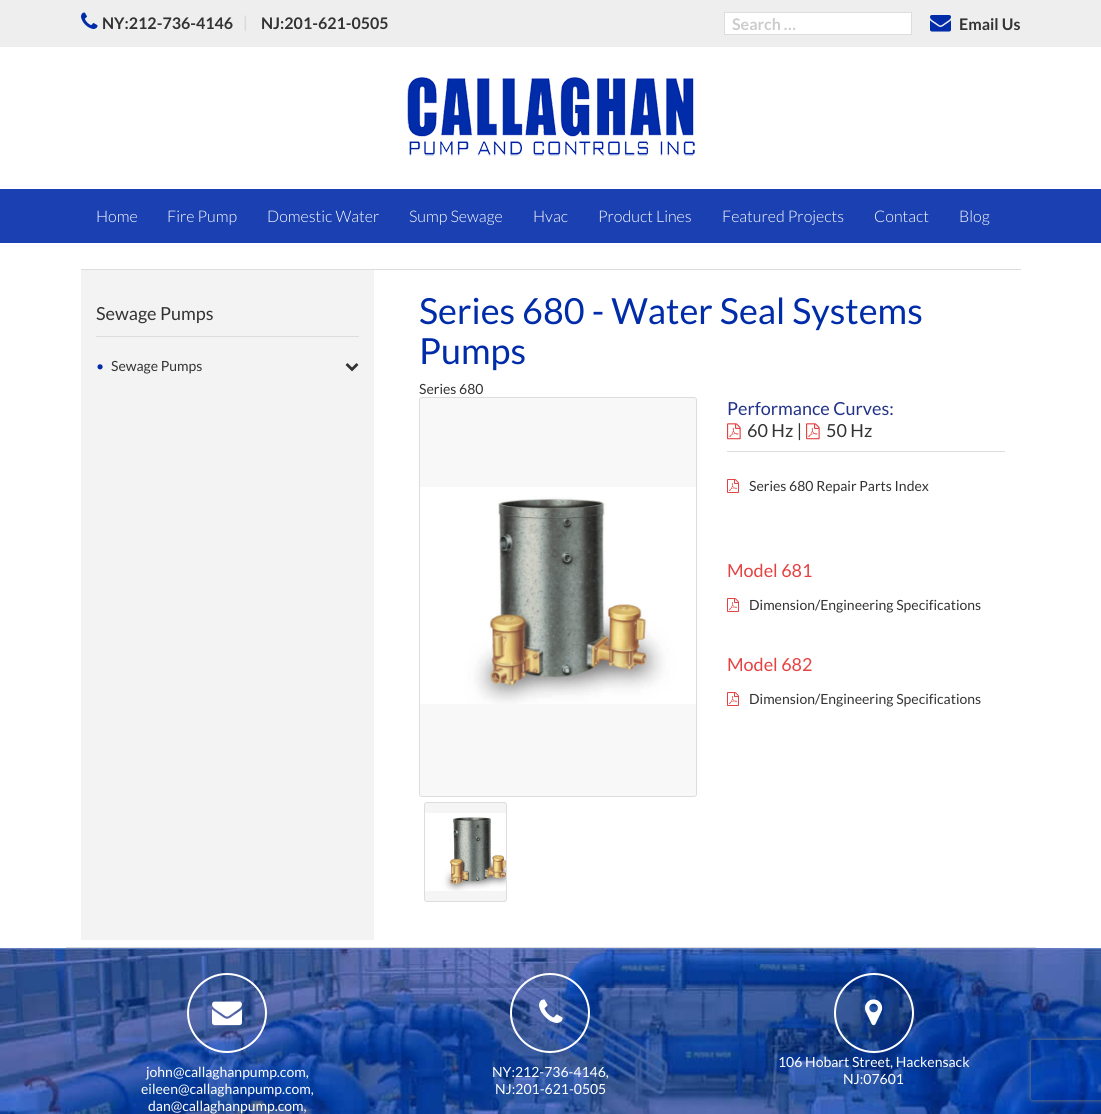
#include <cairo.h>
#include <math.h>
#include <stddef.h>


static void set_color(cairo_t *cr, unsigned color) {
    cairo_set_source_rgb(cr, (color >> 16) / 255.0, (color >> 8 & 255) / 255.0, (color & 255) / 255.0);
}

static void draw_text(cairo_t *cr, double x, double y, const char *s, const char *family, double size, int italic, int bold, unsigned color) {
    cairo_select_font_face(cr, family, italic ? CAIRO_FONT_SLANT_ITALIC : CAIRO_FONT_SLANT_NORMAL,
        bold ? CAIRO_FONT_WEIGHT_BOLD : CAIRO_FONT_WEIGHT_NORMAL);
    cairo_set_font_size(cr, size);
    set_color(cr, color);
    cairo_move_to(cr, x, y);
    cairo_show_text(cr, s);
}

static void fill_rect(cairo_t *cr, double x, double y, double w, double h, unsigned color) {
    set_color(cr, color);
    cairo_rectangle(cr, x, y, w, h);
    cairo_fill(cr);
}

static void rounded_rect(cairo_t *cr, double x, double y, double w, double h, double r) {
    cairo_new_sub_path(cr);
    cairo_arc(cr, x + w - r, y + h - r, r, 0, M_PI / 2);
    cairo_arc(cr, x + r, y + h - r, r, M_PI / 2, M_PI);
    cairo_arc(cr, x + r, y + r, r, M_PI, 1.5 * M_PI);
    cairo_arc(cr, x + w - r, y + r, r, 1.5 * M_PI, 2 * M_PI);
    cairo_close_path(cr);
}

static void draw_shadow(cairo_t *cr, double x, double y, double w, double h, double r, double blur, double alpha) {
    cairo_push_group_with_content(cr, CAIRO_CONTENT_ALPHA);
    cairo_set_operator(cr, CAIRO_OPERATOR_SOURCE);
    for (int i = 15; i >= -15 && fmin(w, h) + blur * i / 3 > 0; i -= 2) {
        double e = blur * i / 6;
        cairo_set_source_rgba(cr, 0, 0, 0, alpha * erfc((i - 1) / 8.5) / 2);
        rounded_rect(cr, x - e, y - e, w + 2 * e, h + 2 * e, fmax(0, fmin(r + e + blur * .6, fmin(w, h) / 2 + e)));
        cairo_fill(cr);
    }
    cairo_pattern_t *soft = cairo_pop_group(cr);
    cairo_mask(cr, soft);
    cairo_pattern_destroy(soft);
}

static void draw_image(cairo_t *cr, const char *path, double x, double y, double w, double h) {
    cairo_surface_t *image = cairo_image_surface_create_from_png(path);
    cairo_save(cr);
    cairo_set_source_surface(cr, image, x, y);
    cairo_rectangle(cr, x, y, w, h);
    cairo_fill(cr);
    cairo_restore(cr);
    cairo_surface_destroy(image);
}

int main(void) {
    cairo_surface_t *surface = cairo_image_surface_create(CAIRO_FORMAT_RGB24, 1101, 1114);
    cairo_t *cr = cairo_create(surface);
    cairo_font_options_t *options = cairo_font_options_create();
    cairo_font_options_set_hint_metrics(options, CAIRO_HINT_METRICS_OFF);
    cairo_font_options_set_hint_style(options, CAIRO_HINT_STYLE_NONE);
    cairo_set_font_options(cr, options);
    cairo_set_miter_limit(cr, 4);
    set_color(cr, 0xFFFFFF);
    cairo_paint(cr);
    fill_rect(cr, 0, 0, 1101, 47, 0xEEEEEE);
    draw_image(cr, "assets/img1.png", 81, 12, 17, 17);
    draw_text(cr, 102, 29, "NY:212-736-4146", "Lato", 16, 0, 1, 0x333333);
    draw_text(cr, 243, 28, "|", "Lato", 16, 0, 1, 0xDADADA);
    draw_text(cr, 261, 29, "NJ:201-621-0505", "Lato", 16, 0, 1, 0x333333);
    set_color(cr, 0xFFFFFF);
    cairo_rectangle(cr, 724.5, 12.5, 187, 22);
    cairo_fill_preserve(cr);
    set_color(cr, 0xDDDDDD);
    cairo_set_line_width(cr, 1);
    cairo_stroke(cr);
    draw_text(cr, 732, 30, "Search …", "Lato", 16, 0, 1, 0xCCCCCC);
    draw_image(cr, "assets/img2.png", 930, 15, 21, 17);
    draw_text(cr, 959, 30, "Email Us", "Lato", 16, 0, 1, 0x333333);
    draw_image(cr, "assets/img3.png", 407, 77, 288, 79);
    fill_rect(cr, 0, 189, 1101, 54, 0x1A40B2);
    draw_text(cr, 96, 222, "Home", "Lato Light", 16, 0, 0, 0xFFFFFF);
    draw_text(cr, 167, 222, "Fire Pump", "Lato Light", 16, 0, 0, 0xFFFFFF);
    draw_text(cr, 267, 222, "Domestic Water", "Lato Light", 16, 0, 0, 0xFFFFFF);
    draw_text(cr, 409, 222, "Sump Sewage", "Lato Light", 16, 0, 0, 0xFFFFFF);
    draw_text(cr, 533, 222, "Hvac", "Lato Light", 16, 0, 0, 0xFFFFFF);
    draw_text(cr, 598, 222, "Product Lines", "Lato Light", 16, 0, 0, 0xFFFFFF);
    draw_text(cr, 722, 222, "Featured Projects", "Lato Light", 16, 0, 0, 0xFFFFFF);
    draw_text(cr, 874, 222, "Contact", "Lato Light", 16, 0, 0, 0xFFFFFF);
    draw_text(cr, 959, 222, "Blog", "Lato Light", 16, 0, 0, 0xFFFFFF);
    fill_rect(cr, 81, 269, 940, 1, 0xDDDDDD);
    fill_rect(cr, 66, 947, 970, 1, 0xDDDDDD);
    fill_rect(cr, 81, 270, 293, 670, 0xF3F3F3);
    fill_rect(cr, 96, 336, 263, 1, 0xDDDDDD);
    draw_text(cr, 96, 320, "Sewage Pumps", "Lato", 18, 0, 0, 0x333333);
    draw_text(cr, 96, 371, "•", "Lato", 14, 0, 0, 0x002BA9);
    draw_text(cr, 111, 371, "Sewage Pumps", "Lato", 14, 0, 0, 0x333333);
    draw_image(cr, "assets/img4.png", 345, 363, 14, 9);
    draw_text(cr, 419, 324, "Series 680 - Water Seal Systems", "Lato", 36, 0, 0, 0x002BA9);
    draw_text(cr, 419, 364, "Pumps", "Lato", 36, 0, 0, 0x002BA9);
    draw_text(cr, 419, 394, "Series 680", "Lato", 14, 0, 0, 0x333333);
    set_color(cr, 0xF8F8F8);
    rounded_rect(cr, 419.5, 397.5, 277, 399, 2.5);
    cairo_fill_preserve(cr);
    set_color(cr, 0xDDDDDD);
    cairo_stroke(cr);
    draw_image(cr, "assets/img5.png", 420, 487, 276, 217);
    set_color(cr, 0xF5F5F5);
    rounded_rect(cr, 424.5, 802.5, 82, 99, 2.5);
    cairo_fill_preserve(cr);
    set_color(cr, 0xDDDDDD);
    cairo_stroke(cr);
    draw_image(cr, "assets/img6.png", 425, 813, 81, 78);
    fill_rect(cr, 727, 451, 278, 1, 0xDDDDDD);
    draw_text(cr, 727, 415, "Performance Curves:", "Lato", 18, 0, 0, 0x23338A);
    draw_image(cr, "assets/img7.png", 727, 423, 14, 17);
    draw_text(cr, 747, 437, "60 Hz |", "Lato", 18, 0, 0, 0x333333);
    draw_image(cr, "assets/img7.png", 806, 423, 14, 17);
    draw_text(cr, 826, 437, "50 Hz", "Lato", 18, 0, 0, 0x333333);
    draw_image(cr, "assets/img8.png", 727, 479, 12, 14);
    draw_text(cr, 749, 491, "Series 680 Repair Parts Index", "Lato", 14, 0, 0, 0x333333);
    draw_text(cr, 727, 577, "Model 681", "Lato", 18, 0, 0, 0xE54242);
    draw_image(cr, "assets/img8.png", 727, 598, 12, 14);
    draw_text(cr, 749, 610, "Dimension/Engineering Specifications", "Lato", 14, 0, 0, 0x333333);
    draw_text(cr, 727, 671, "Model 682", "Lato", 18, 0, 0, 0xE54242);
    draw_image(cr, "assets/img8.png", 727, 692, 12, 14);
    draw_text(cr, 749, 704, "Dimension/Engineering Specifications", "Lato", 14, 0, 0, 0x333333);
    draw_image(cr, "assets/img9.png", 0, 948, 1101, 166);
    cairo_arc(cr, 227, 1013, 39, 0, 2 * M_PI);
    set_color(cr, 0xFFFFFF);
    cairo_set_line_width(cr, 2);
    cairo_stroke(cr);
    draw_image(cr, "assets/img10.png", 212, 1001, 30, 25);
    draw_text(cr, 146, 1077, "john@callaghanpump.com,", "Lato", 14, 0, 0, 0xFFFFFF);
    draw_text(cr, 141, 1094, "eileen@callaghanpump.com,", "Lato", 14, 0, 0, 0xFFFFFF);
    draw_text(cr, 148, 1111, "dan@callaghanpump.com,", "Lato", 14, 0, 0, 0xFFFFFF);
    cairo_new_path(cr);
    cairo_arc(cr, 550, 1013, 39, 0, 2 * M_PI);
    cairo_stroke(cr);
    draw_image(cr, "assets/img11.png", 539, 999, 24, 24);
    draw_text(cr, 492, 1077, "NY:212-736-4146,", "Lato", 14, 0, 0, 0xFFFFFF);
    draw_text(cr, 495, 1094, "NJ:201-621-0505", "Lato", 14, 0, 0, 0xFFFFFF);
    cairo_new_path(cr);
    cairo_arc(cr, 874, 1013, 39, 0, 2 * M_PI);
    cairo_stroke(cr);
    draw_image(cr, "assets/img12.png", 865, 999, 18, 27);
    draw_text(cr, 778, 1067, "106 Hobart Street, Hackensack", "Lato", 14, 0, 0, 0xFFFFFF);
    draw_text(cr, 843, 1084, "NJ:07601", "Lato", 14, 0, 0, 0xFFFFFF);
    cairo_save(cr);
    cairo_set_fill_rule(cr, CAIRO_FILL_RULE_EVEN_ODD);
    cairo_new_path(cr);
    cairo_move_to(cr, 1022, 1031);
    cairo_line_to(cr, 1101, 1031);
    cairo_line_to(cr, 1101, 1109);
    cairo_line_to(cr, 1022, 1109);
    cairo_close_path(cr);
    cairo_move_to(cr, 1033, 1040);
    cairo_line_to(cr, 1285, 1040);
    cairo_curve_to(cr, 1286, 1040, 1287, 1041, 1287, 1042);
    cairo_line_to(cr, 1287, 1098);
    cairo_curve_to(cr, 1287, 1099, 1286, 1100, 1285, 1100);
    cairo_line_to(cr, 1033, 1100);
    cairo_curve_to(cr, 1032, 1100, 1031, 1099, 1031, 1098);
    cairo_line_to(cr, 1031, 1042);
    cairo_curve_to(cr, 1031, 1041, 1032, 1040, 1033, 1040);
    cairo_close_path(cr);
    cairo_clip(cr);
    set_color(cr, 0x808080);
    draw_shadow(cr, 1031, 1040, 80, 60, 2, 2.5, 1);
    cairo_restore(cr);
    cairo_surface_write_to_png(surface, "output.png");
    cairo_font_options_destroy(options);
    cairo_destroy(cr);
    cairo_surface_destroy(surface);
    return 0;
}
